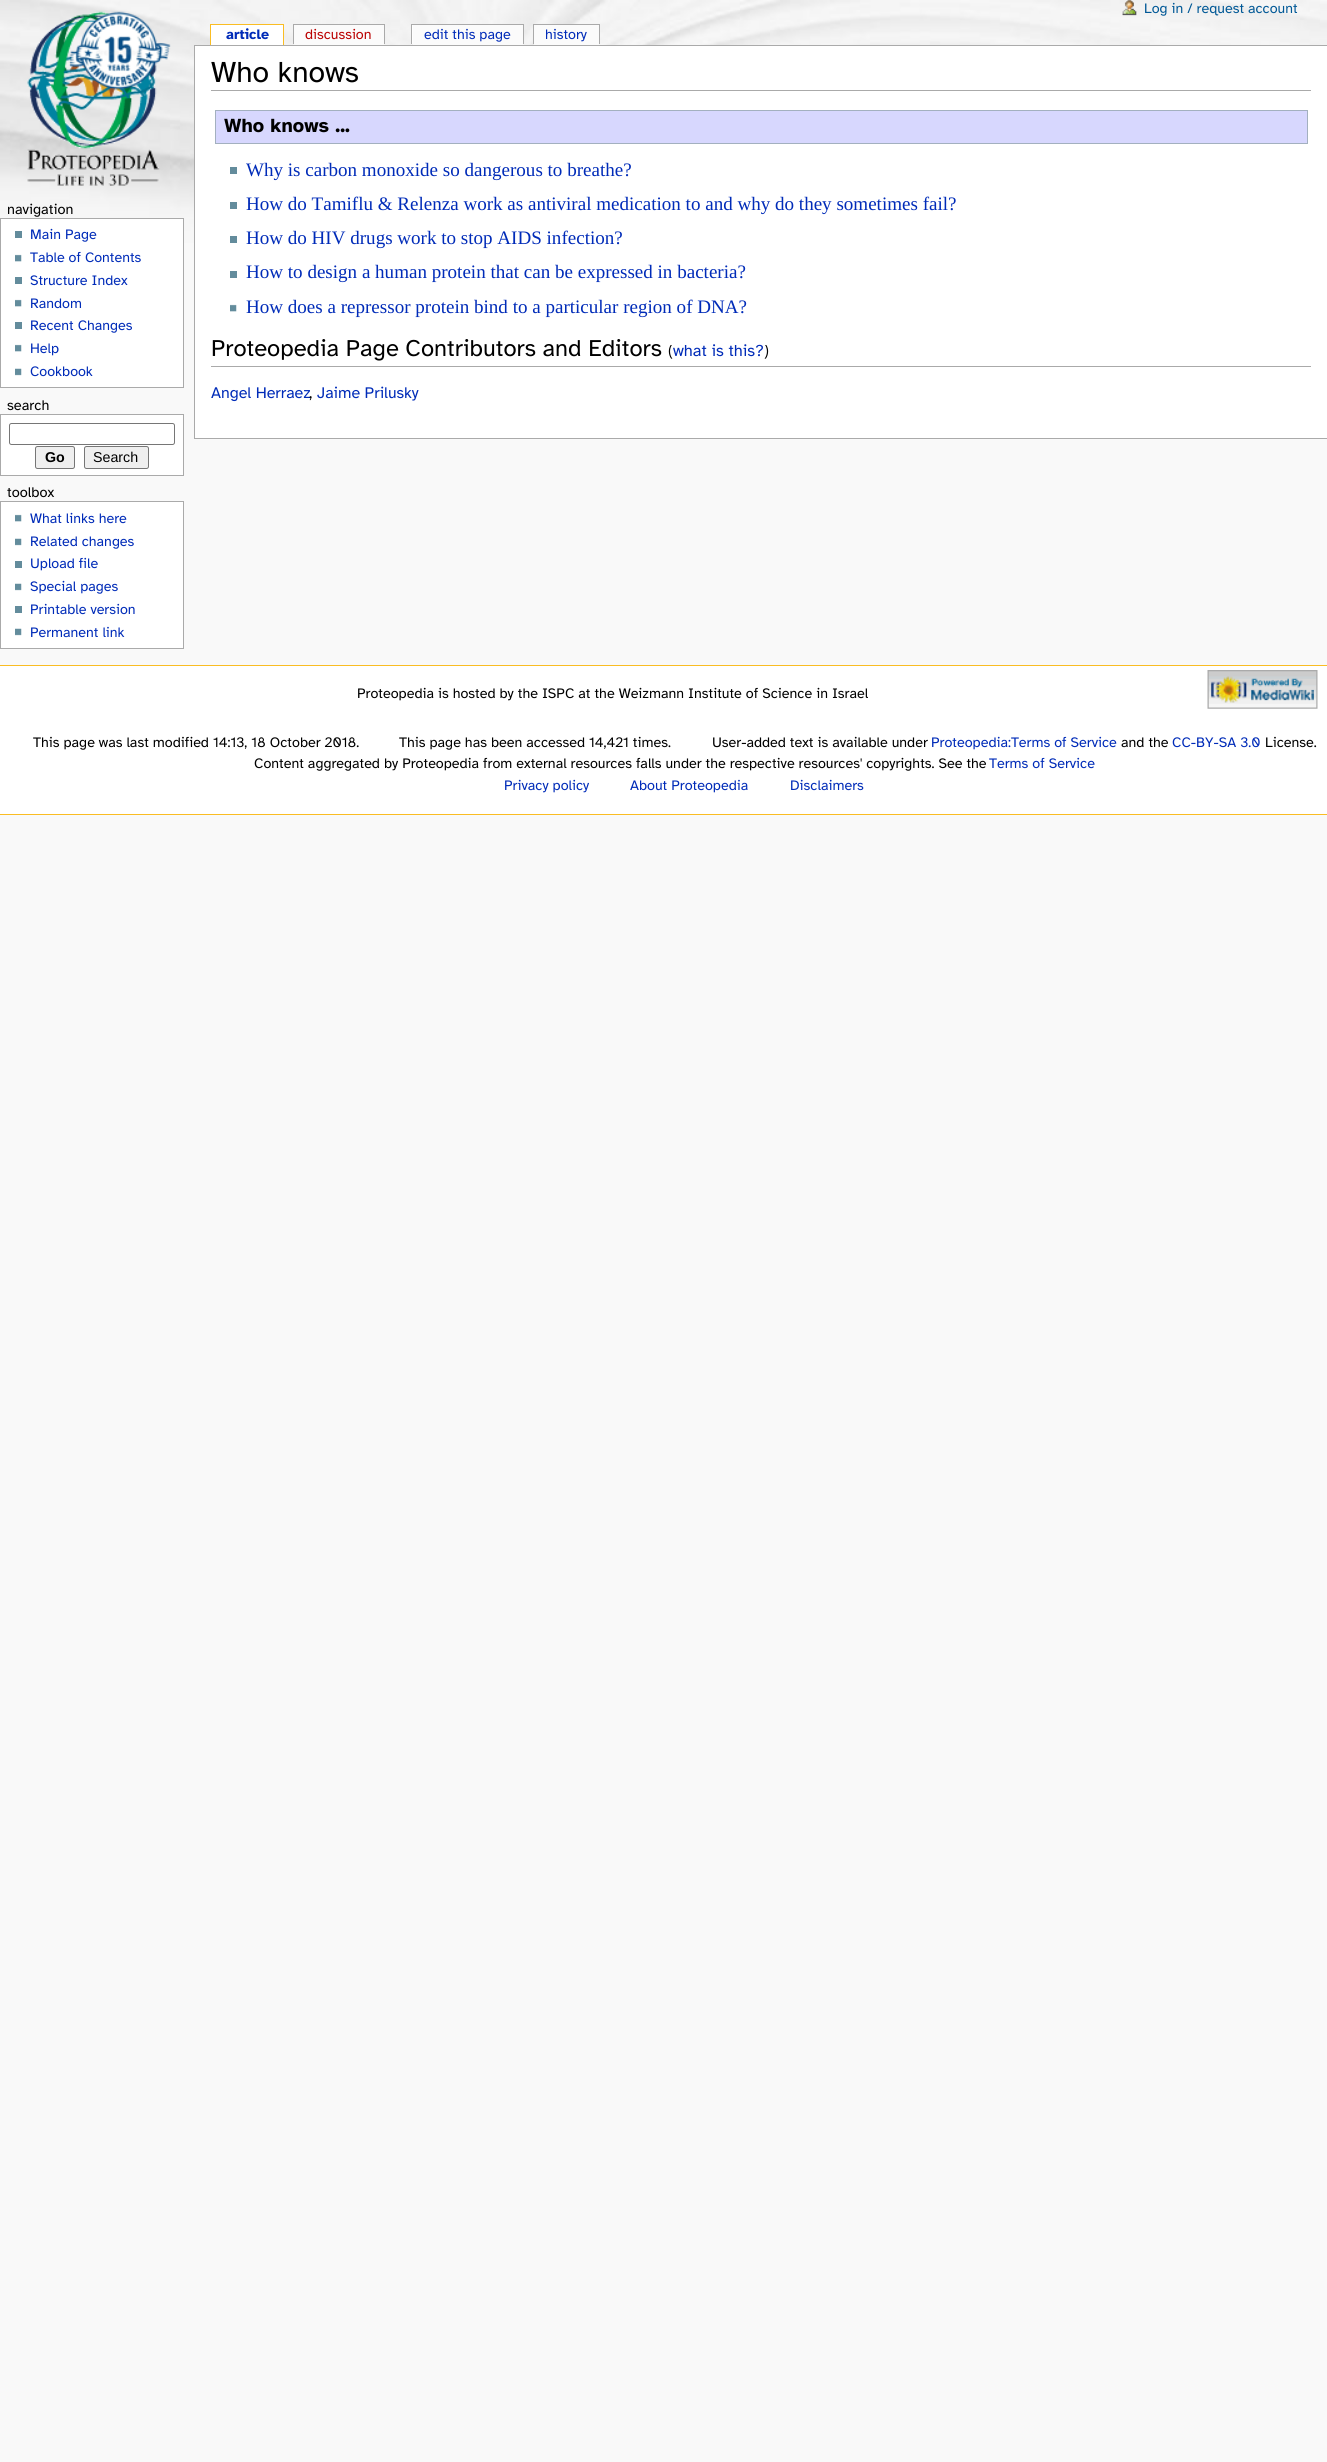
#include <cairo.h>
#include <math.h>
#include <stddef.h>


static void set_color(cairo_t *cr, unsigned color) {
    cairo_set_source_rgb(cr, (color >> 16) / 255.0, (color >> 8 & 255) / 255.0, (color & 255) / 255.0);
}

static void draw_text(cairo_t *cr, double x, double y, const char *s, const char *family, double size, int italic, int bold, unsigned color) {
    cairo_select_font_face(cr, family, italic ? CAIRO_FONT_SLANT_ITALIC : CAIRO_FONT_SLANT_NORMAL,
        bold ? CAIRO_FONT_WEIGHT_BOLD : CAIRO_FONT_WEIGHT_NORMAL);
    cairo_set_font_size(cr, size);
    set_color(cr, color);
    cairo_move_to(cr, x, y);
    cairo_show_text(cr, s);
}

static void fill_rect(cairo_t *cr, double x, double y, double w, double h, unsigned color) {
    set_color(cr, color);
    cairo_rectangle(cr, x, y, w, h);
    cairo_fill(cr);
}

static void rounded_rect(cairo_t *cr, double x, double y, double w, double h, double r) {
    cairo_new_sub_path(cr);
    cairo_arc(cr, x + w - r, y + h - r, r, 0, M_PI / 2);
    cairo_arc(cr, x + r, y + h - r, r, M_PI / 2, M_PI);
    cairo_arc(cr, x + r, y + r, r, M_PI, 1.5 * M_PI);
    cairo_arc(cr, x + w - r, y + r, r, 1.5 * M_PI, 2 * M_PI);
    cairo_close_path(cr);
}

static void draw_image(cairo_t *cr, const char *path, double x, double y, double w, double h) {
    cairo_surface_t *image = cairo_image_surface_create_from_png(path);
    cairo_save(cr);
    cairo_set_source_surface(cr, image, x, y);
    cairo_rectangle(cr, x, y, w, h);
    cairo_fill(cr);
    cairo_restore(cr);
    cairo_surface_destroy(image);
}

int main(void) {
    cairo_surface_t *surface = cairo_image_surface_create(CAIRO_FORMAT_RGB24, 1327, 2462);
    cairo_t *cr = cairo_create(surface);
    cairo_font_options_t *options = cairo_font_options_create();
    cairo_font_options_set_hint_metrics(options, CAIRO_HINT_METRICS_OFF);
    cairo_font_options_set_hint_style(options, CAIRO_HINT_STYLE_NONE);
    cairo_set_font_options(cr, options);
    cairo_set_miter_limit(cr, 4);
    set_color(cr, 0xF9F9F9);
    cairo_paint(cr);
    draw_image(cr, "assets/img1.png", 0, 0, 1327, 243);
    draw_image(cr, "assets/img2.png", 1122, 0, 15, 16);
    draw_text(cr, 1144, 13, "Log in / request account", "Atkinson Hyperlegible", 14.25, 0, 0, 0x005896);
    draw_image(cr, "assets/img3.png", 27, 11, 144, 175);
    fill_rect(cr, 211, 25, 72, 20, 0xFFFFFF);
    draw_text(cr, 226, 39, "article", "Atkinson Hyperlegible", 14.25, 0, 1, 0x002BB8);
    fill_rect(cr, 210, 24, 74, 1, 0xFABD23);
    fill_rect(cr, 283, 24, 1, 21, 0xFABD23);
    fill_rect(cr, 210, 24, 1, 21, 0xFABD23);
    fill_rect(cr, 294, 25, 90, 20, 0xFBFBFB);
    draw_text(cr, 305, 39, "discussion", "Atkinson Hyperlegible", 14.25, 0, 0, 0xBA0000);
    fill_rect(cr, 293, 24, 92, 1, 0xAAAAAA);
    fill_rect(cr, 384, 24, 1, 20, 0xAAAAAA);
    fill_rect(cr, 293, 24, 1, 20, 0xAAAAAA);
    fill_rect(cr, 413, 25, 110, 20, 0xFBFBFB);
    draw_text(cr, 424, 39, "edit this page", "Atkinson Hyperlegible", 14.25, 0, 0, 0x002BB8);
    fill_rect(cr, 412, 25, 1, 19, 0xFFFFFF);
    fill_rect(cr, 411, 24, 113, 1, 0xAAAAAA);
    fill_rect(cr, 523, 24, 1, 20, 0xAAAAAA);
    fill_rect(cr, 411, 24, 1, 20, 0xAAAAAA);
    fill_rect(cr, 534, 25, 65, 20, 0xFBFBFB);
    draw_text(cr, 545, 39, "history", "Atkinson Hyperlegible", 14.25, 0, 0, 0x002BB8);
    fill_rect(cr, 533, 24, 67, 1, 0xAAAAAA);
    fill_rect(cr, 599, 24, 1, 20, 0xAAAAAA);
    fill_rect(cr, 533, 24, 1, 20, 0xAAAAAA);
    draw_text(cr, 7, 214, "navigation", "Atkinson Hyperlegible", 14.5, 0, 0, 0x000000);
    set_color(cr, 0xFFFFFF);
    cairo_rectangle(cr, 0.5, 218.5, 183, 169);
    cairo_fill_preserve(cr);
    set_color(cr, 0xAAAAAA);
    cairo_set_line_width(cr, 1);
    cairo_stroke(cr);
    fill_rect(cr, 15, 231, 7, 7, 0x638C9C);
    draw_text(cr, 30, 239, "Main Page", "Atkinson Hyperlegible", 14.25, 0, 0, 0x002BB8);
    draw_image(cr, "assets/img4.png", 15, 254, 7, 8);
    draw_text(cr, 30, 262, "Table of Contents", "Atkinson Hyperlegible", 14.25, 0, 0, 0x002BB8);
    fill_rect(cr, 15, 277, 7, 7, 0x638C9C);
    draw_text(cr, 30, 285, "Structure Index", "Atkinson Hyperlegible", 14.25, 0, 0, 0x002BB8);
    draw_image(cr, "assets/img4.png", 15, 299, 7, 8);
    draw_text(cr, 30, 308, "Random", "Atkinson Hyperlegible", 14.25, 0, 0, 0x002BB8);
    fill_rect(cr, 15, 322, 7, 7, 0x638C9C);
    draw_text(cr, 30, 330, "Recent Changes", "Atkinson Hyperlegible", 14.25, 0, 0, 0x002BB8);
    draw_image(cr, "assets/img4.png", 15, 344, 7, 8);
    draw_text(cr, 30, 353, "Help", "Atkinson Hyperlegible", 14.25, 0, 0, 0x002BB8);
    draw_image(cr, "assets/img5.png", 15, 368, 7, 8);
    draw_text(cr, 30, 376, "Cookbook", "Atkinson Hyperlegible", 14.25, 0, 0, 0x002BB8);
    draw_text(cr, 7, 410, "search", "Atkinson Hyperlegible", 14.5, 0, 0, 0x000000);
    set_color(cr, 0xFFFFFF);
    cairo_rectangle(cr, 0.5, 414.5, 183, 61);
    cairo_fill_preserve(cr);
    set_color(cr, 0xAAAAAA);
    cairo_stroke(cr);
    rounded_rect(cr, 9.5, 423.5, 165, 21, 2);
    set_color(cr, 0x767676);
    cairo_stroke(cr);
    set_color(cr, 0xEFEFEF);
    rounded_rect(cr, 35.5, 446.5, 39, 22, 2);
    cairo_fill_preserve(cr);
    set_color(cr, 0x767676);
    cairo_stroke(cr);
    draw_text(cr, 45, 462, "Go", "Liberation Sans", 14.25, 0, 1, 0x000000);
    set_color(cr, 0xEFEFEF);
    rounded_rect(cr, 84.5, 446.5, 64, 22, 2);
    cairo_fill_preserve(cr);
    set_color(cr, 0x767676);
    cairo_stroke(cr);
    draw_text(cr, 93, 462, "Search", "Liberation Sans", 14.25, 0, 0, 0x000000);
    draw_text(cr, 7, 497, "toolbox", "Atkinson Hyperlegible", 14.5, 0, 0, 0x000000);
    set_color(cr, 0xFFFFFF);
    cairo_rectangle(cr, 0.5, 501.5, 183, 147);
    cairo_fill_preserve(cr);
    set_color(cr, 0xAAAAAA);
    cairo_stroke(cr);
    draw_image(cr, "assets/img4.png", 15, 514, 7, 8);
    draw_text(cr, 30, 523, "What links here", "Atkinson Hyperlegible", 14.25, 0, 0, 0x002BB8);
    draw_image(cr, "assets/img5.png", 15, 538, 7, 8);
    draw_text(cr, 30, 546, "Related changes", "Atkinson Hyperlegible", 14.25, 0, 0, 0x002BB8);
    fill_rect(cr, 15, 561, 7, 7, 0x638C9C);
    draw_text(cr, 30, 568, "Upload file", "Atkinson Hyperlegible", 14.25, 0, 0, 0x002BB8);
    draw_image(cr, "assets/img5.png", 15, 583, 7, 8);
    draw_text(cr, 30, 591, "Special pages", "Atkinson Hyperlegible", 14.25, 0, 0, 0x002BB8);
    fill_rect(cr, 15, 606, 7, 7, 0x638C9C);
    draw_text(cr, 30, 614, "Printable version", "Atkinson Hyperlegible", 14.25, 0, 0, 0x002BB8);
    draw_image(cr, "assets/img5.png", 15, 628, 7, 8);
    draw_text(cr, 30, 637, "Permanent link", "Atkinson Hyperlegible", 14.25, 0, 0, 0x002BB8);
    fill_rect(cr, 195, 46, 1132, 392, 0xFFFFFF);
    fill_rect(cr, 194, 45, 1133, 1, 0xAAAAAA);
    fill_rect(cr, 194, 438, 1133, 1, 0xAAAAAA);
    fill_rect(cr, 194, 45, 1, 394, 0xAAAAAA);
    fill_rect(cr, 211, 90, 1100, 1, 0xAAAAAA);
    draw_text(cr, 211, 82, "Who knows", "Atkinson Hyperlegible", 30, 0, 0, 0x000000);
    set_color(cr, 0xD7D7FE);
    cairo_rectangle(cr, 215.5, 110.5, 1092, 33);
    cairo_fill_preserve(cr);
    set_color(cr, 0xA3B0BF);
    cairo_stroke(cr);
    draw_text(cr, 224, 132, "Who knows ...", "Atkinson Hyperlegible", 19.75, 0, 1, 0x000000);
    fill_rect(cr, 230, 167, 7, 7, 0x638C9C);
    draw_text(cr, 246, 176, "Why is carbon monoxide so dangerous to breathe?", "Liberation Serif", 19.05, 0, 0, 0x002BB8);
    fill_rect(cr, 230, 202, 7, 7, 0x638C9C);
    draw_text(cr, 246, 210, "How do Tamiflu & Relenza work as antiviral medication to and why do they sometimes fail?", "Liberation Serif", 19.05, 0, 0, 0x002BB8);
    fill_rect(cr, 230, 236, 7, 7, 0x638C9C);
    draw_text(cr, 246, 244, "How do HIV drugs work to stop AIDS infection?", "Liberation Serif", 19.05, 0, 0, 0x002BB8);
    fill_rect(cr, 230, 271, 7, 7, 0x638C9C);
    draw_text(cr, 246, 278, "How to design a human protein that can be expressed in bacteria?", "Liberation Serif", 19.05, 0, 0, 0x002BB8);
    draw_image(cr, "assets/img4.png", 230, 304, 7, 8);
    draw_text(cr, 246, 313, "How does a repressor protein bind to a particular region of DNA?", "Liberation Serif", 19.05, 0, 0, 0x002BB8);
    fill_rect(cr, 211, 366, 1100, 1, 0xAAAAAA);
    draw_text(cr, 211, 356, "Proteopedia Page Contributors and Editors", "Atkinson Hyperlegible", 23.8, 0, 0, 0x000000);
    draw_text(cr, 668, 356, "(", "Atkinson Hyperlegible", 16.5, 0, 0, 0x000000);
    draw_text(cr, 673, 356, "what is this?", "Atkinson Hyperlegible", 16.5, 0, 0, 0x002BB8);
    draw_text(cr, 764, 356, ")", "Atkinson Hyperlegible", 16.5, 0, 0, 0x000000);
    draw_text(cr, 211, 398, "Angel Herraez", "Atkinson Hyperlegible", 16, 0, 0, 0x002BB8);
    draw_text(cr, 309, 398, ",", "Atkinson Hyperlegible", 16, 0, 0, 0x000000);
    draw_text(cr, 317, 398, "Jaime Prilusky", "Atkinson Hyperlegible", 16, 0, 0, 0x002BB8);
    fill_rect(cr, 0, 666, 1327, 148, 0xFFFFFF);
    fill_rect(cr, 0, 665, 1327, 1, 0xFABD23);
    fill_rect(cr, 0, 814, 1327, 1, 0xFABD23);
    draw_image(cr, "assets/img6.png", 1207, 670, 111, 39);
    draw_text(cr, 357, 698, "Proteopedia is hosted by the ISPC at the Weizmann Institute of Science in Israel", "Atkinson Hyperlegible", 14.3, 0, 0, 0x000000);
    draw_text(cr, 33, 747, "This page was last modified 14:13, 18 October 2018.", "Atkinson Hyperlegible", 14.3, 0, 0, 0x000000);
    draw_text(cr, 399, 747, "This page has been accessed 14,421 times.", "Atkinson Hyperlegible", 14.3, 0, 0, 0x000000);
    draw_text(cr, 712, 747, "User-added text is available under", "Atkinson Hyperlegible", 14.3, 0, 0, 0x000000);
    draw_text(cr, 931, 747, "Proteopedia:Terms of Service", "Atkinson Hyperlegible", 14.3, 0, 0, 0x002BB8);
    draw_text(cr, 1121, 747, "and the", "Atkinson Hyperlegible", 14.3, 0, 0, 0x000000);
    draw_text(cr, 1172, 747, "CC-BY-SA 3.0", "Atkinson Hyperlegible", 14.3, 0, 0, 0x002BB8);
    draw_text(cr, 1265, 747, "License.", "Atkinson Hyperlegible", 14.3, 0, 0, 0x000000);
    draw_text(cr, 254, 768, "Content aggregated by Proteopedia from external resources falls under the respective resources' copyrights. See the", "Atkinson Hyperlegible", 14.3, 0, 0, 0x000000);
    draw_text(cr, 989, 768, "Terms of Service", "Atkinson Hyperlegible", 14.3, 0, 0, 0x002BB8);
    draw_text(cr, 504, 790, "Privacy policy", "Atkinson Hyperlegible", 14.3, 0, 0, 0x002BB8);
    draw_text(cr, 630, 790, "About Proteopedia", "Atkinson Hyperlegible", 14.3, 0, 0, 0x002BB8);
    draw_text(cr, 790, 790, "Disclaimers", "Atkinson Hyperlegible", 14.3, 0, 0, 0x002BB8);
    cairo_surface_write_to_png(surface, "output.png");
    cairo_font_options_destroy(options);
    cairo_destroy(cr);
    cairo_surface_destroy(surface);
    return 0;
}
